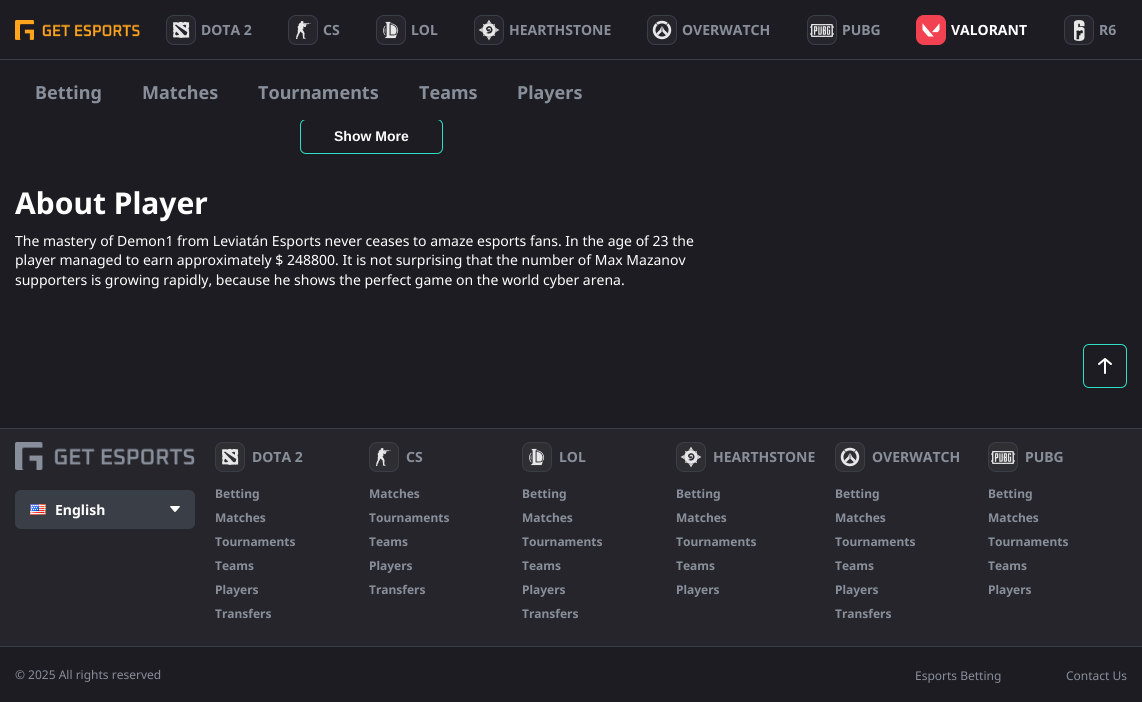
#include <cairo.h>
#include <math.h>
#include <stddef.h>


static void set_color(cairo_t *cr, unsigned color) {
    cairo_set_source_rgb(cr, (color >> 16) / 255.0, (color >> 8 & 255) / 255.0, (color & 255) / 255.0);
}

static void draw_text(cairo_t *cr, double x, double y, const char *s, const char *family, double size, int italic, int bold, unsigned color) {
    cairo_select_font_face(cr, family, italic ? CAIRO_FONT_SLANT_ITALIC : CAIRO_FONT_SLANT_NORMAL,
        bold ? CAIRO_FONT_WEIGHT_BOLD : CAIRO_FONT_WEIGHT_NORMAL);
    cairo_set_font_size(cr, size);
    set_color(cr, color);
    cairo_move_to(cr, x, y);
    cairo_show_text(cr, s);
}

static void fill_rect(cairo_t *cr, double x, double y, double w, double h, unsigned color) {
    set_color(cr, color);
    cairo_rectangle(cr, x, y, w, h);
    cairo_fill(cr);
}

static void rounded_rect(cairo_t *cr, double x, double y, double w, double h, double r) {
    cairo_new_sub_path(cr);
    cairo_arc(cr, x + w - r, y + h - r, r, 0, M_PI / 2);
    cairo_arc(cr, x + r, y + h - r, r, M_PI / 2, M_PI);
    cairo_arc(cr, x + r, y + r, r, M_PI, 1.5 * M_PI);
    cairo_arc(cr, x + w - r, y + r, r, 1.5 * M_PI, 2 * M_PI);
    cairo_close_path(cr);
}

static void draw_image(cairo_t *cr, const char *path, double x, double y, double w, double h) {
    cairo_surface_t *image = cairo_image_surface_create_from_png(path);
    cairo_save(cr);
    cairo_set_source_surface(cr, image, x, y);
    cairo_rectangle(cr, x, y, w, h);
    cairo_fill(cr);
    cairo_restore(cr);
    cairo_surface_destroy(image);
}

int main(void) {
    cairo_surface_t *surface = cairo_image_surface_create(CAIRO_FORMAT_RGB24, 1142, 702);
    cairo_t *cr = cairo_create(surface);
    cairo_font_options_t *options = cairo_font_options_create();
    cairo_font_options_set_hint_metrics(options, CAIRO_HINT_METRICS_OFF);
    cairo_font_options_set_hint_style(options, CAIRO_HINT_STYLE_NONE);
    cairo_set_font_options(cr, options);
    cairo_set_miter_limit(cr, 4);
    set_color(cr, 0x1C1C22);
    cairo_paint(cr);
    draw_image(cr, "assets/img1.png", 15, 20, 125, 20);
    set_color(cr, 0xF24251);
    rounded_rect(cr, 916.5, 15.5, 29, 29, 7.5);
    cairo_fill_preserve(cr);
    cairo_set_line_width(cr, 1);
    cairo_stroke(cr);
    draw_image(cr, "assets/img2.png", 922, 23, 18, 14);
    draw_text(cr, 951, 35, "VALORANT", "Noto Sans", 14, 0, 1, 0xFFFFFF);
    rounded_rect(cr, 300.5, 119.5, 142, 34, 5.5);
    set_color(cr, 0x2FDFC5);
    cairo_stroke(cr);
    fill_rect(cr, 302, 119, 139, 1, 0x1C1C22);
    draw_text(cr, 35, 99, "Betting", "Noto Sans", 18, 0, 1, 0x888F9A);
    draw_text(cr, 142, 99, "Matches", "Noto Sans", 18, 0, 1, 0x888F9A);
    draw_text(cr, 258, 99, "Tournaments", "Noto Sans", 18, 0, 1, 0x888F9A);
    draw_text(cr, 419, 99, "Teams", "Noto Sans", 18, 0, 1, 0x888F9A);
    draw_text(cr, 517, 99, "Players", "Noto Sans", 18, 0, 1, 0x888F9A);
    set_color(cr, 0x25252B);
    rounded_rect(cr, 166.5, 15.5, 29, 29, 7.5);
    cairo_fill_preserve(cr);
    set_color(cr, 0x3A3F47);
    cairo_stroke(cr);
    draw_image(cr, "assets/img3.png", 173, 21, 17, 17);
    draw_text(cr, 201, 35, "DOTA 2", "Noto Sans", 14, 0, 1, 0x888F9A);
    set_color(cr, 0x25252B);
    rounded_rect(cr, 288.5, 15.5, 29, 29, 7.5);
    cairo_fill_preserve(cr);
    set_color(cr, 0x3A3F47);
    cairo_stroke(cr);
    draw_image(cr, "assets/img4.png", 296, 21, 15, 18);
    draw_text(cr, 323, 35, "CS", "Noto Sans", 14, 0, 1, 0x888F9A);
    set_color(cr, 0x25252B);
    rounded_rect(cr, 376.5, 15.5, 29, 29, 7.5);
    cairo_fill_preserve(cr);
    set_color(cr, 0x3A3F47);
    cairo_stroke(cr);
    draw_image(cr, "assets/img5.png", 383, 21, 16, 18);
    draw_text(cr, 411, 35, "LOL", "Noto Sans", 14, 0, 1, 0x888F9A);
    set_color(cr, 0x25252B);
    rounded_rect(cr, 474.5, 15.5, 29, 29, 7.5);
    cairo_fill_preserve(cr);
    set_color(cr, 0x3A3F47);
    cairo_stroke(cr);
    draw_image(cr, "assets/img6.png", 478, 19, 22, 22);
    draw_text(cr, 509, 35, "HEARTHSTONE", "Noto Sans", 14, 0, 1, 0x888F9A);
    set_color(cr, 0x25252B);
    rounded_rect(cr, 647.5, 15.5, 29, 29, 7.5);
    cairo_fill_preserve(cr);
    set_color(cr, 0x3A3F47);
    cairo_stroke(cr);
    draw_image(cr, "assets/img7.png", 652, 20, 20, 20);
    draw_text(cr, 682, 35, "OVERWATCH", "Noto Sans", 14, 0, 1, 0x888F9A);
    set_color(cr, 0x25252B);
    rounded_rect(cr, 807.5, 15.5, 29, 29, 7.5);
    cairo_fill_preserve(cr);
    set_color(cr, 0x3A3F47);
    cairo_stroke(cr);
    draw_image(cr, "assets/img8.png", 810, 24, 24, 13);
    draw_text(cr, 842, 35, "PUBG", "Noto Sans", 14, 0, 1, 0x888F9A);
    set_color(cr, 0x25252B);
    rounded_rect(cr, 1064.5, 15.5, 29, 29, 7.5);
    cairo_fill_preserve(cr);
    set_color(cr, 0x3A3F47);
    cairo_stroke(cr);
    draw_image(cr, "assets/img9.png", 1074, 20, 11, 21);
    draw_text(cr, 1099, 35, "R6", "Noto Sans", 14, 0, 1, 0x888F9A);
    fill_rect(cr, 0, 59, 1142, 1, 0x3A3F47);
    draw_text(cr, 334, 141, "Show More", "Liberation Sans", 14, 0, 1, 0xFFFFFF);
    draw_text(cr, 15, 214, "About Player", "Noto Sans", 30, 0, 1, 0xFFFFFF);
    draw_text(cr, 15, 246, "The mastery of Demon1 from Leviatán Esports never ceases to amaze esports fans. In the age of 23 the", "Noto Sans", 14, 0, 0, 0xFFFFFF);
    draw_text(cr, 15, 265, "player managed to earn approximately $ 248800. It is not surprising that the number of Max Mazanov", "Noto Sans", 14, 0, 0, 0xFFFFFF);
    draw_text(cr, 15, 285, "supporters is growing rapidly, because he shows the perfect game on the world cyber arena.", "Noto Sans", 14, 0, 0, 0xFFFFFF);
    rounded_rect(cr, 1083.5, 344.5, 43, 43, 5.5);
    set_color(cr, 0x2FDFC5);
    cairo_stroke(cr);
    draw_image(cr, "assets/img10.png", 1098, 358, 14, 16);
    fill_rect(cr, 0, 429, 1142, 217, 0x25252B);
    fill_rect(cr, 0, 428, 1142, 1, 0x3A3F47);
    draw_image(cr, "assets/img11.png", 15, 442, 180, 28);
    rounded_rect(cr, 15, 490, 180, 39, 6);
    cairo_fill(cr);
    draw_image(cr, "assets/img12.png", 30, 504, 16, 11);
    draw_text(cr, 55, 515, "English", "Noto Sans", 14, 0, 1, 0xFFFFFF);
    draw_image(cr, "assets/img13.png", 170, 506, 10, 6);
    set_color(cr, 0x2E2E33);
    rounded_rect(cr, 215.5, 442.5, 29, 29, 7.5);
    cairo_fill_preserve(cr);
    set_color(cr, 0x3A3F47);
    cairo_stroke(cr);
    draw_image(cr, "assets/img14.png", 222, 448, 17, 17);
    draw_text(cr, 252, 462, "DOTA 2", "Noto Sans", 14, 0, 1, 0x888F9A);
    draw_text(cr, 215, 498, "Betting", "Noto Sans", 12, 0, 1, 0x888F9A);
    draw_text(cr, 215, 522, "Matches", "Noto Sans", 12, 0, 1, 0x888F9A);
    draw_text(cr, 215, 546, "Tournaments", "Noto Sans", 12, 0, 1, 0x888F9A);
    draw_text(cr, 215, 570, "Teams", "Noto Sans", 12, 0, 1, 0x888F9A);
    draw_text(cr, 215, 594, "Players", "Noto Sans", 12, 0, 1, 0x888F9A);
    draw_text(cr, 215, 618, "Transfers", "Noto Sans", 12, 0, 1, 0x888F9A);
    set_color(cr, 0x2E2E33);
    rounded_rect(cr, 369.5, 442.5, 29, 29, 7.5);
    cairo_fill_preserve(cr);
    set_color(cr, 0x3A3F47);
    cairo_stroke(cr);
    draw_image(cr, "assets/img15.png", 376, 448, 15, 18);
    draw_text(cr, 406, 462, "CS", "Noto Sans", 14, 0, 1, 0x888F9A);
    draw_text(cr, 369, 498, "Matches", "Noto Sans", 12, 0, 1, 0x888F9A);
    draw_text(cr, 369, 522, "Tournaments", "Noto Sans", 12, 0, 1, 0x888F9A);
    draw_text(cr, 369, 546, "Teams", "Noto Sans", 12, 0, 1, 0x888F9A);
    draw_text(cr, 369, 570, "Players", "Noto Sans", 12, 0, 1, 0x888F9A);
    draw_text(cr, 369, 594, "Transfers", "Noto Sans", 12, 0, 1, 0x888F9A);
    set_color(cr, 0x2E2E33);
    rounded_rect(cr, 522.5, 442.5, 29, 29, 7.5);
    cairo_fill_preserve(cr);
    set_color(cr, 0x3A3F47);
    cairo_stroke(cr);
    draw_image(cr, "assets/img16.png", 529, 448, 16, 18);
    draw_text(cr, 559, 462, "LOL", "Noto Sans", 14, 0, 1, 0x888F9A);
    draw_text(cr, 522, 498, "Betting", "Noto Sans", 12, 0, 1, 0x888F9A);
    draw_text(cr, 522, 522, "Matches", "Noto Sans", 12, 0, 1, 0x888F9A);
    draw_text(cr, 522, 546, "Tournaments", "Noto Sans", 12, 0, 1, 0x888F9A);
    draw_text(cr, 522, 570, "Teams", "Noto Sans", 12, 0, 1, 0x888F9A);
    draw_text(cr, 522, 594, "Players", "Noto Sans", 12, 0, 1, 0x888F9A);
    draw_text(cr, 522, 618, "Transfers", "Noto Sans", 12, 0, 1, 0x888F9A);
    set_color(cr, 0x2E2E33);
    rounded_rect(cr, 676.5, 442.5, 29, 29, 7.5);
    cairo_fill_preserve(cr);
    set_color(cr, 0x3A3F47);
    cairo_stroke(cr);
    draw_image(cr, "assets/img17.png", 680, 446, 22, 22);
    draw_text(cr, 713, 462, "HEARTHSTONE", "Noto Sans", 14, 0, 1, 0x888F9A);
    draw_text(cr, 676, 498, "Betting", "Noto Sans", 12, 0, 1, 0x888F9A);
    draw_text(cr, 676, 522, "Matches", "Noto Sans", 12, 0, 1, 0x888F9A);
    draw_text(cr, 676, 546, "Tournaments", "Noto Sans", 12, 0, 1, 0x888F9A);
    draw_text(cr, 676, 570, "Teams", "Noto Sans", 12, 0, 1, 0x888F9A);
    draw_text(cr, 676, 594, "Players", "Noto Sans", 12, 0, 1, 0x888F9A);
    set_color(cr, 0x2E2E33);
    rounded_rect(cr, 835.5, 442.5, 29, 29, 7.5);
    cairo_fill_preserve(cr);
    set_color(cr, 0x3A3F47);
    cairo_stroke(cr);
    draw_image(cr, "assets/img18.png", 840, 447, 20, 20);
    draw_text(cr, 872, 462, "OVERWATCH", "Noto Sans", 14, 0, 1, 0x888F9A);
    draw_text(cr, 835, 498, "Betting", "Noto Sans", 12, 0, 1, 0x888F9A);
    draw_text(cr, 835, 522, "Matches", "Noto Sans", 12, 0, 1, 0x888F9A);
    draw_text(cr, 835, 546, "Tournaments", "Noto Sans", 12, 0, 1, 0x888F9A);
    draw_text(cr, 835, 570, "Teams", "Noto Sans", 12, 0, 1, 0x888F9A);
    draw_text(cr, 835, 594, "Players", "Noto Sans", 12, 0, 1, 0x888F9A);
    draw_text(cr, 835, 618, "Transfers", "Noto Sans", 12, 0, 1, 0x888F9A);
    set_color(cr, 0x2E2E33);
    rounded_rect(cr, 988.5, 442.5, 29, 29, 7.5);
    cairo_fill_preserve(cr);
    set_color(cr, 0x3A3F47);
    cairo_stroke(cr);
    draw_image(cr, "assets/img19.png", 991, 451, 24, 13);
    draw_text(cr, 1025, 462, "PUBG", "Noto Sans", 14, 0, 1, 0x888F9A);
    draw_text(cr, 988, 498, "Betting", "Noto Sans", 12, 0, 1, 0x888F9A);
    draw_text(cr, 988, 522, "Matches", "Noto Sans", 12, 0, 1, 0x888F9A);
    draw_text(cr, 988, 546, "Tournaments", "Noto Sans", 12, 0, 1, 0x888F9A);
    draw_text(cr, 988, 570, "Teams", "Noto Sans", 12, 0, 1, 0x888F9A);
    draw_text(cr, 988, 594, "Players", "Noto Sans", 12, 0, 1, 0x888F9A);
    fill_rect(cr, 0, 646, 1142, 1, 0x3A3F47);
    draw_text(cr, 15, 679, "© 2025 All rights reserved", "Noto Sans", 12, 0, 0, 0x888F9A);
    draw_text(cr, 915, 680, "Esports Betting", "Noto Sans", 12, 0, 0, 0x888F9A);
    draw_text(cr, 1066, 680, "Contact Us", "Noto Sans", 12, 0, 0, 0x888F9A);
    cairo_surface_write_to_png(surface, "output.png");
    cairo_font_options_destroy(options);
    cairo_destroy(cr);
    cairo_surface_destroy(surface);
    return 0;
}
